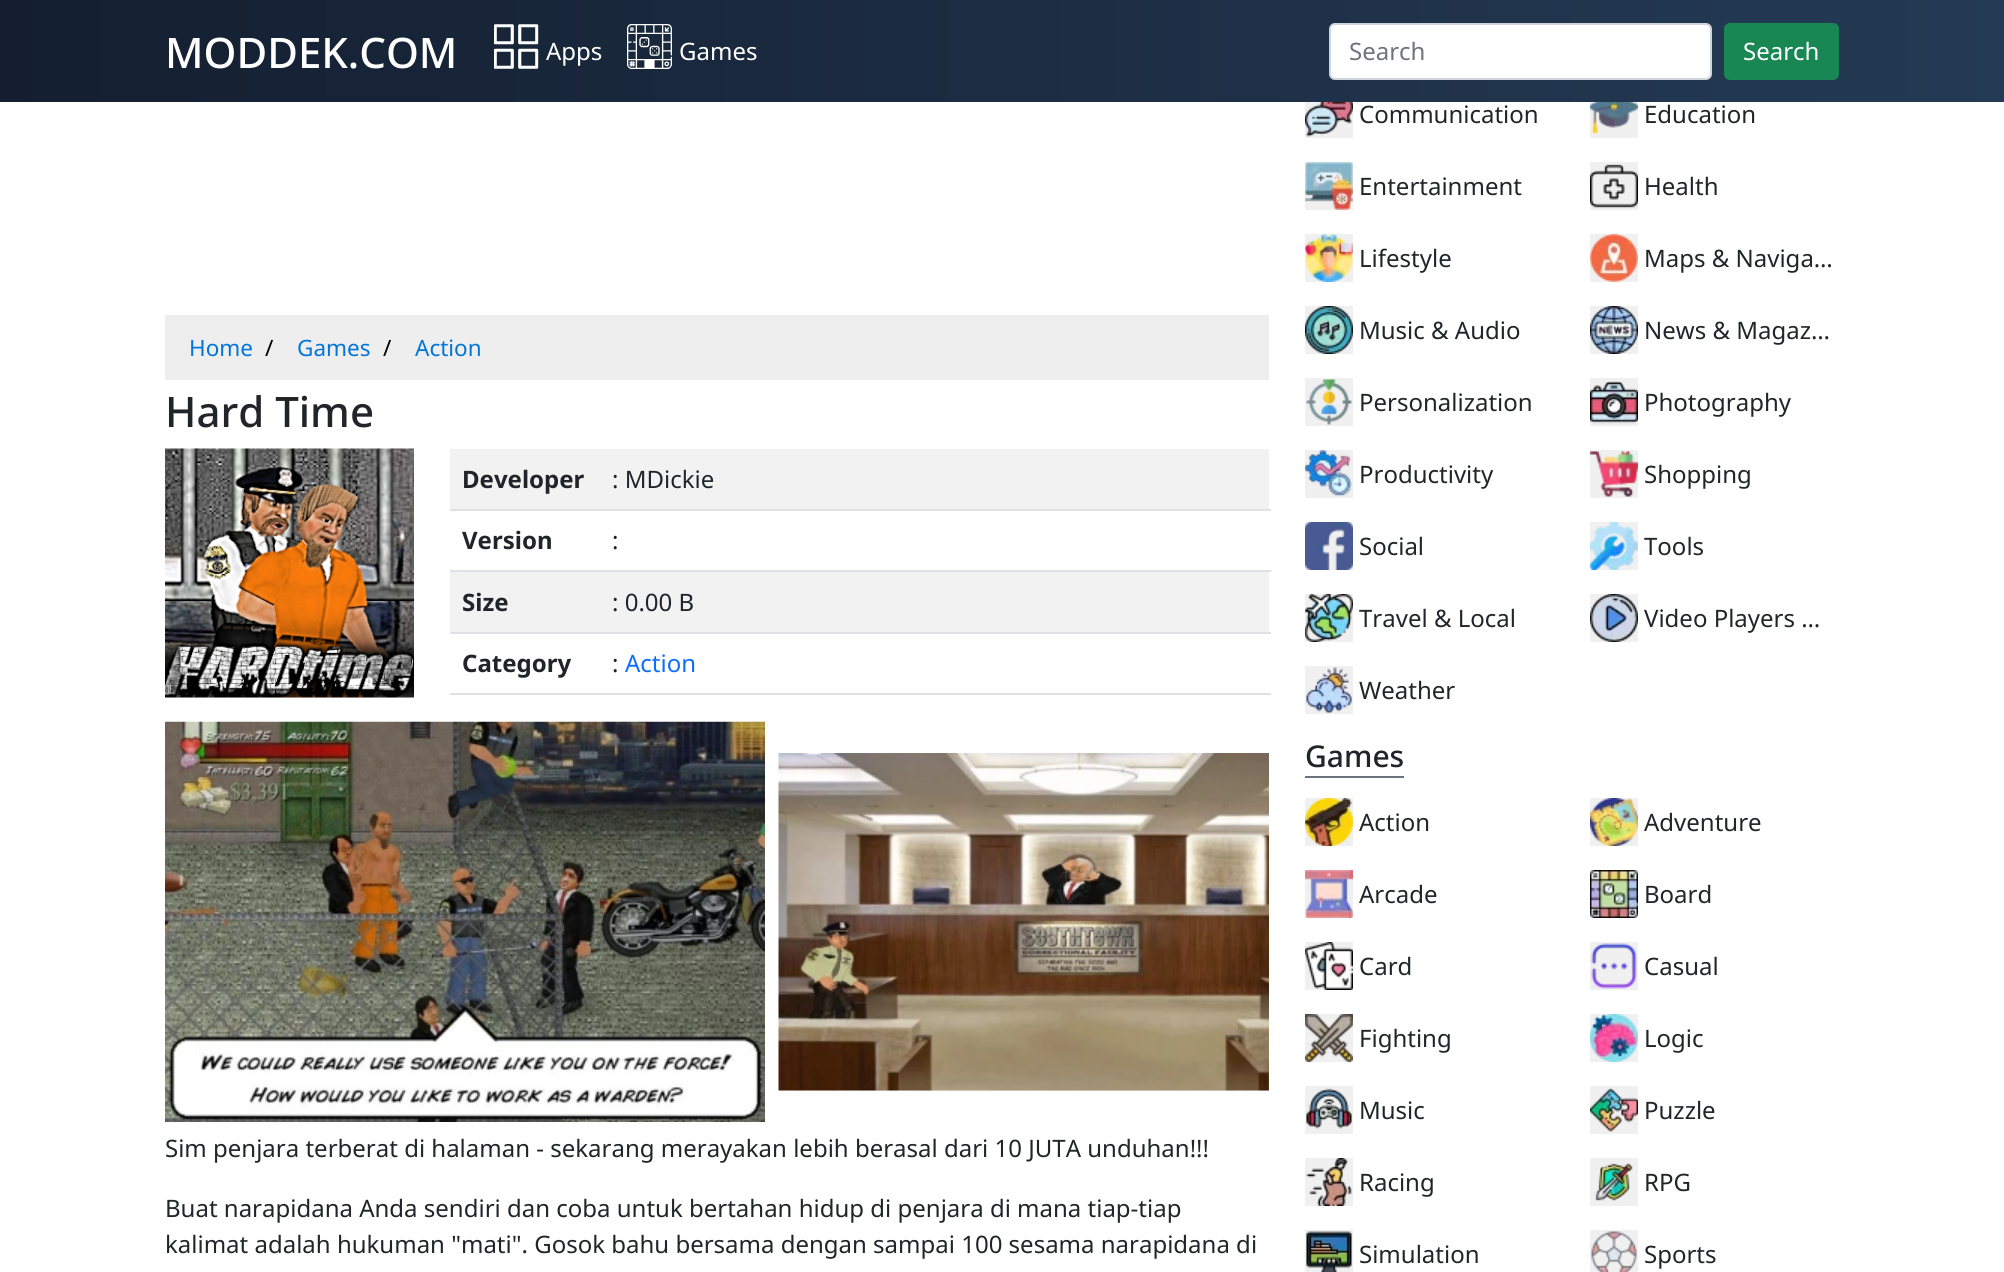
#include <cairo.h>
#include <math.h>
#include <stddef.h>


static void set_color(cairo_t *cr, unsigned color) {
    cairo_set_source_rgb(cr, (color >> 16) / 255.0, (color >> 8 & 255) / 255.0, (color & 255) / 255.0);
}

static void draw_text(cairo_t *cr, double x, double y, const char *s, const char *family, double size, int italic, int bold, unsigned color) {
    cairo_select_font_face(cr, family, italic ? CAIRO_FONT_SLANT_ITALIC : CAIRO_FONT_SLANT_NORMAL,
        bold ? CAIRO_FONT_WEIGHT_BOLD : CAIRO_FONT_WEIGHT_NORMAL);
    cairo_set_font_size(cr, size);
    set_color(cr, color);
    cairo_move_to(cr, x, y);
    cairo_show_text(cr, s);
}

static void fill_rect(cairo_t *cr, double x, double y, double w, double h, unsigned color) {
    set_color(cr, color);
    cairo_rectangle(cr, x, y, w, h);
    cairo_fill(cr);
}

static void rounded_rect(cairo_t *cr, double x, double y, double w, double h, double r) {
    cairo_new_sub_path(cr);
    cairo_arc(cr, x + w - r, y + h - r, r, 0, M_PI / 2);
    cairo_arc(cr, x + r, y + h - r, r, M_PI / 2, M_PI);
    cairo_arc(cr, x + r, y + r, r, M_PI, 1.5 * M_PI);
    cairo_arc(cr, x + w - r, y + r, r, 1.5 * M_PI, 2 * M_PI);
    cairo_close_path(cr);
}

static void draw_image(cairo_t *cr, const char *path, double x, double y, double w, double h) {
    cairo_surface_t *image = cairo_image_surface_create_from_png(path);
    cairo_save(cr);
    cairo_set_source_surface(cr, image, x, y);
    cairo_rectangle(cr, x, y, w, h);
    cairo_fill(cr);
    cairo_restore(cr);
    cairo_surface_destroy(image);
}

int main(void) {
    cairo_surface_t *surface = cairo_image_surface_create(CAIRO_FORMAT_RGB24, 2004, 1272);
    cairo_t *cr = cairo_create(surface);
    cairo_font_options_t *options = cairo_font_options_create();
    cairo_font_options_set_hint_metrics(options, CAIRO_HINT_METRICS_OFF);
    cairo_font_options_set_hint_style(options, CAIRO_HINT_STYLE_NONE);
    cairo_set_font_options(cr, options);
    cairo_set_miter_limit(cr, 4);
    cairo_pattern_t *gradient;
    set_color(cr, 0xFFFFFF);
    cairo_paint(cr);
    gradient = cairo_pattern_create_linear(0, 51, 2004, 51);
    cairo_pattern_add_color_stop_rgba(gradient, 0, 0.078, 0.118, 0.188, 1);
    cairo_pattern_add_color_stop_rgba(gradient, 1, 0.141, 0.231, 0.333, 1);
    cairo_set_source(cr, gradient);
    cairo_pattern_destroy(gradient);
    cairo_rectangle(cr, 0, 0, 2004, 102);
    cairo_fill(cr);
    draw_text(cr, 165, 68, "MODDEK.COM", "Noto Sans Medium", 42, 0, 0, 0xFFFFFF);
    draw_image(cr, "assets/img1.png", 494, 24, 45, 45);
    draw_text(cr, 546, 60, "Apps", "Noto Sans", 24, 0, 0, 0xFFFFFF);
    draw_image(cr, "assets/img2.png", 627, 24, 45, 45);
    draw_text(cr, 679, 60, "Games", "Noto Sans", 24, 0, 0, 0xFFFFFF);
    rounded_rect(cr, 1330, 24, 381, 55, 5);
    cairo_fill_preserve(cr);
    set_color(cr, 0xCED4DA);
    cairo_stroke(cr);
    draw_text(cr, 1349, 60, "Search", "Noto Sans", 24, 0, 0, 0x6C757D);
    set_color(cr, 0x198754);
    rounded_rect(cr, 1724, 23, 115, 57, 6);
    cairo_fill(cr);
    draw_text(cr, 1743, 60, "Search", "Noto Sans", 24, 0, 0, 0xFFFFFF);
    fill_rect(cr, 165, 315, 1104, 65, 0xEEEEEE);
    draw_text(cr, 189, 356, "Home", "Noto Sans", 22.5, 0, 0, 0x0275D8);
    draw_text(cr, 265, 356, "/", "Noto Sans", 22.5, 0, 0, 0x000000);
    draw_text(cr, 297, 356, "Games", "Noto Sans", 22.5, 0, 0, 0x0275D8);
    draw_text(cr, 383, 356, "/", "Noto Sans", 22.5, 0, 0, 0x000000);
    draw_text(cr, 415, 356, "Action", "Noto Sans", 22.5, 0, 0, 0x0275D8);
    draw_text(cr, 165, 427, "Hard Time", "Noto Sans Medium", 42, 0, 0, 0x212529);
    fill_rect(cr, 165, 697, 249, 1, 0xF0F0F0);
    draw_image(cr, "assets/img3.png", 165, 448, 249, 250);
    fill_rect(cr, 450, 449, 819, 60, 0xF2F2F2);
    draw_text(cr, 462, 488, "Developer", "Noto Sans", 24, 0, 1, 0x212529);
    fill_rect(cr, 450, 509, 821, 2, 0xDEE2E6);
    draw_text(cr, 612, 488, ": MDickie", "Noto Sans", 24, 0, 0, 0x212529);
    draw_text(cr, 462, 549, "Version", "Noto Sans", 24, 0, 1, 0x212529);
    fill_rect(cr, 450, 570, 821, 2, 0xDEE2E6);
    draw_text(cr, 612, 549, ":", "Noto Sans", 24, 0, 0, 0x212529);
    fill_rect(cr, 450, 572, 819, 60, 0xF2F2F2);
    draw_text(cr, 462, 611, "Size", "Noto Sans", 24, 0, 1, 0x212529);
    fill_rect(cr, 450, 632, 821, 2, 0xDEE2E6);
    draw_text(cr, 612, 611, ": 0.00 B", "Noto Sans", 24, 0, 0, 0x212529);
    draw_text(cr, 462, 672, "Category", "Noto Sans", 24, 0, 1, 0x212529);
    fill_rect(cr, 450, 693, 821, 2, 0xDEE2E6);
    draw_text(cr, 612, 672, ":", "Noto Sans", 24, 0, 0, 0x212529);
    draw_text(cr, 625, 672, "Action", "Noto Sans", 24, 0, 0, 0x0D6EFD);
    draw_image(cr, "assets/img4.png", 165, 721, 600, 401);
    fill_rect(cr, 779, 1090, 490, 1, 0xF0F0F0);
    draw_image(cr, "assets/img5.png", 778, 753, 491, 338);
    draw_text(cr, 165, 1157, "Sim penjara terberat di halaman - sekarang merayakan lebih berasal dari 10 JUTA unduhan!!!", "Noto Sans", 24, 0, 0, 0x212529);
    draw_text(cr, 165, 1217, "Buat narapidana Anda sendiri dan coba untuk bertahan hidup di penjara di mana tiap-tiap", "Noto Sans", 24, 0, 0, 0x212529);
    draw_text(cr, 165, 1253, "kalimat adalah hukuman \"mati\". Gosok bahu bersama dengan sampai 100 sesama narapidana di", "Noto Sans", 24, 0, 0, 0x212529);
    fill_rect(cr, 1305, 102, 48, 36, 0xF0F0F0);
    draw_image(cr, "assets/img6.png", 1305, 102, 48, 35);
    draw_text(cr, 1359, 123, "Communication", "Noto Sans", 24, 0, 0, 0x212529);
    fill_rect(cr, 1590, 102, 48, 36, 0xF0F0F0);
    draw_image(cr, "assets/img7.png", 1590, 102, 48, 32);
    draw_text(cr, 1644, 123, "Education", "Noto Sans", 24, 0, 0, 0x212529);
    fill_rect(cr, 1305, 162, 48, 48, 0xF0F0F0);
    draw_image(cr, "assets/img8.png", 1305, 162, 48, 48);
    draw_text(cr, 1359, 195, "Entertainment", "Noto Sans", 24, 0, 0, 0x212529);
    fill_rect(cr, 1590, 162, 48, 48, 0xF0F0F0);
    draw_image(cr, "assets/img9.png", 1590, 164, 48, 44);
    draw_text(cr, 1644, 195, "Health", "Noto Sans", 24, 0, 0, 0x212529);
    fill_rect(cr, 1305, 234, 48, 48, 0xF0F0F0);
    draw_image(cr, "assets/img10.png", 1305, 234, 48, 48);
    draw_text(cr, 1359, 267, "Lifestyle", "Noto Sans", 24, 0, 0, 0x212529);
    fill_rect(cr, 1590, 234, 48, 48, 0xF0F0F0);
    draw_image(cr, "assets/img11.png", 1590, 234, 48, 48);
    draw_text(cr, 1644, 267, "Maps & Naviga…", "Noto Sans", 24, 0, 0, 0x212529);
    fill_rect(cr, 1305, 306, 48, 48, 0xF0F0F0);
    draw_image(cr, "assets/img12.png", 1305, 306, 48, 48);
    draw_text(cr, 1359, 339, "Music & Audio", "Noto Sans", 24, 0, 0, 0x212529);
    fill_rect(cr, 1590, 306, 48, 48, 0xF0F0F0);
    draw_image(cr, "assets/img13.png", 1590, 306, 48, 48);
    draw_text(cr, 1644, 339, "News & Magaz…", "Noto Sans", 24, 0, 0, 0x212529);
    fill_rect(cr, 1305, 378, 48, 48, 0xF0F0F0);
    draw_image(cr, "assets/img14.png", 1306, 379, 46, 46);
    draw_text(cr, 1359, 411, "Personalization", "Noto Sans", 24, 0, 0, 0x212529);
    fill_rect(cr, 1590, 378, 48, 48, 0xF0F0F0);
    draw_image(cr, "assets/img15.png", 1590, 381, 48, 43);
    draw_text(cr, 1644, 411, "Photography", "Noto Sans", 24, 0, 0, 0x212529);
    fill_rect(cr, 1305, 450, 48, 48, 0xF0F0F0);
    draw_image(cr, "assets/img16.png", 1305, 450, 47, 47);
    draw_text(cr, 1359, 483, "Productivity", "Noto Sans", 24, 0, 0, 0x212529);
    fill_rect(cr, 1590, 450, 48, 48, 0xF0F0F0);
    draw_image(cr, "assets/img17.png", 1590, 451, 48, 46);
    draw_text(cr, 1644, 483, "Shopping", "Noto Sans", 24, 0, 0, 0x212529);
    fill_rect(cr, 1305, 522, 48, 48, 0xF0F0F0);
    draw_image(cr, "assets/img18.png", 1305, 522, 48, 48);
    draw_text(cr, 1359, 555, "Social", "Noto Sans", 24, 0, 0, 0x212529);
    fill_rect(cr, 1590, 522, 48, 48, 0xF0F0F0);
    draw_image(cr, "assets/img19.png", 1590, 522, 48, 48);
    draw_text(cr, 1644, 555, "Tools", "Noto Sans", 24, 0, 0, 0x212529);
    fill_rect(cr, 1305, 594, 48, 48, 0xF0F0F0);
    draw_image(cr, "assets/img20.png", 1305, 594, 48, 48);
    draw_text(cr, 1359, 627, "Travel & Local", "Noto Sans", 24, 0, 0, 0x212529);
    fill_rect(cr, 1590, 594, 48, 48, 0xF0F0F0);
    draw_image(cr, "assets/img21.png", 1590, 594, 48, 48);
    draw_text(cr, 1644, 627, "Video Players …", "Noto Sans", 24, 0, 0, 0x212529);
    fill_rect(cr, 1305, 666, 48, 48, 0xF0F0F0);
    draw_image(cr, "assets/img22.png", 1306, 667, 46, 46);
    draw_text(cr, 1359, 699, "Weather", "Noto Sans", 24, 0, 0, 0x212529);
    draw_text(cr, 1305, 767, "Games", "Noto Sans Medium", 30, 0, 0, 0x212529);
    fill_rect(cr, 1305, 776, 99, 2, 0x6C757D);
    fill_rect(cr, 1305, 798, 48, 48, 0xF0F0F0);
    draw_image(cr, "assets/img23.png", 1305, 798, 48, 48);
    draw_text(cr, 1359, 831, "Action", "Noto Sans", 24, 0, 0, 0x212529);
    fill_rect(cr, 1590, 798, 48, 48, 0xF0F0F0);
    draw_image(cr, "assets/img24.png", 1590, 798, 48, 48);
    draw_text(cr, 1644, 831, "Adventure", "Noto Sans", 24, 0, 0, 0x212529);
    fill_rect(cr, 1305, 870, 48, 48, 0xF0F0F0);
    draw_image(cr, "assets/img25.png", 1305, 870, 48, 48);
    draw_text(cr, 1359, 903, "Arcade", "Noto Sans", 24, 0, 0, 0x212529);
    fill_rect(cr, 1590, 870, 48, 48, 0xF0F0F0);
    draw_image(cr, "assets/img26.png", 1590, 870, 48, 48);
    draw_text(cr, 1644, 903, "Board", "Noto Sans", 24, 0, 0, 0x212529);
    fill_rect(cr, 1305, 942, 48, 48, 0xF0F0F0);
    draw_image(cr, "assets/img27.png", 1305, 942, 48, 48);
    draw_text(cr, 1359, 975, "Card", "Noto Sans", 24, 0, 0, 0x212529);
    fill_rect(cr, 1590, 942, 48, 48, 0xF0F0F0);
    draw_image(cr, "assets/img28.png", 1591, 943, 46, 46);
    draw_text(cr, 1644, 975, "Casual", "Noto Sans", 24, 0, 0, 0x212529);
    fill_rect(cr, 1305, 1014, 48, 48, 0xF0F0F0);
    draw_image(cr, "assets/img29.png", 1305, 1014, 48, 48);
    draw_text(cr, 1359, 1047, "Fighting", "Noto Sans", 24, 0, 0, 0x212529);
    fill_rect(cr, 1590, 1014, 48, 48, 0xF0F0F0);
    draw_image(cr, "assets/img30.png", 1590, 1014, 48, 48);
    draw_text(cr, 1644, 1047, "Logic", "Noto Sans", 24, 0, 0, 0x212529);
    fill_rect(cr, 1305, 1086, 48, 48, 0xF0F0F0);
    draw_image(cr, "assets/img31.png", 1306, 1088, 46, 41);
    draw_text(cr, 1359, 1119, "Music", "Noto Sans", 24, 0, 0, 0x212529);
    fill_rect(cr, 1590, 1086, 48, 48, 0xF0F0F0);
    draw_image(cr, "assets/img32.png", 1590, 1088, 48, 44);
    draw_text(cr, 1644, 1119, "Puzzle", "Noto Sans", 24, 0, 0, 0x212529);
    fill_rect(cr, 1305, 1158, 48, 48, 0xF0F0F0);
    draw_image(cr, "assets/img33.png", 1306, 1158, 46, 48);
    draw_text(cr, 1359, 1191, "Racing", "Noto Sans", 24, 0, 0, 0x212529);
    fill_rect(cr, 1590, 1158, 48, 48, 0xF0F0F0);
    draw_image(cr, "assets/img34.png", 1595, 1163, 38, 38);
    draw_text(cr, 1644, 1191, "RPG", "Noto Sans", 24, 0, 0, 0x212529);
    fill_rect(cr, 1305, 1230, 48, 42, 0xF0F0F0);
    draw_image(cr, "assets/img35.png", 1306, 1231, 46, 41);
    draw_text(cr, 1359, 1263, "Simulation", "Noto Sans", 24, 0, 0, 0x212529);
    fill_rect(cr, 1590, 1230, 48, 42, 0xF0F0F0);
    draw_image(cr, "assets/img36.png", 1591, 1231, 46, 41);
    draw_text(cr, 1644, 1263, "Sports", "Noto Sans", 24, 0, 0, 0x212529);
    cairo_surface_write_to_png(surface, "output.png");
    cairo_font_options_destroy(options);
    cairo_destroy(cr);
    cairo_surface_destroy(surface);
    return 0;
}
